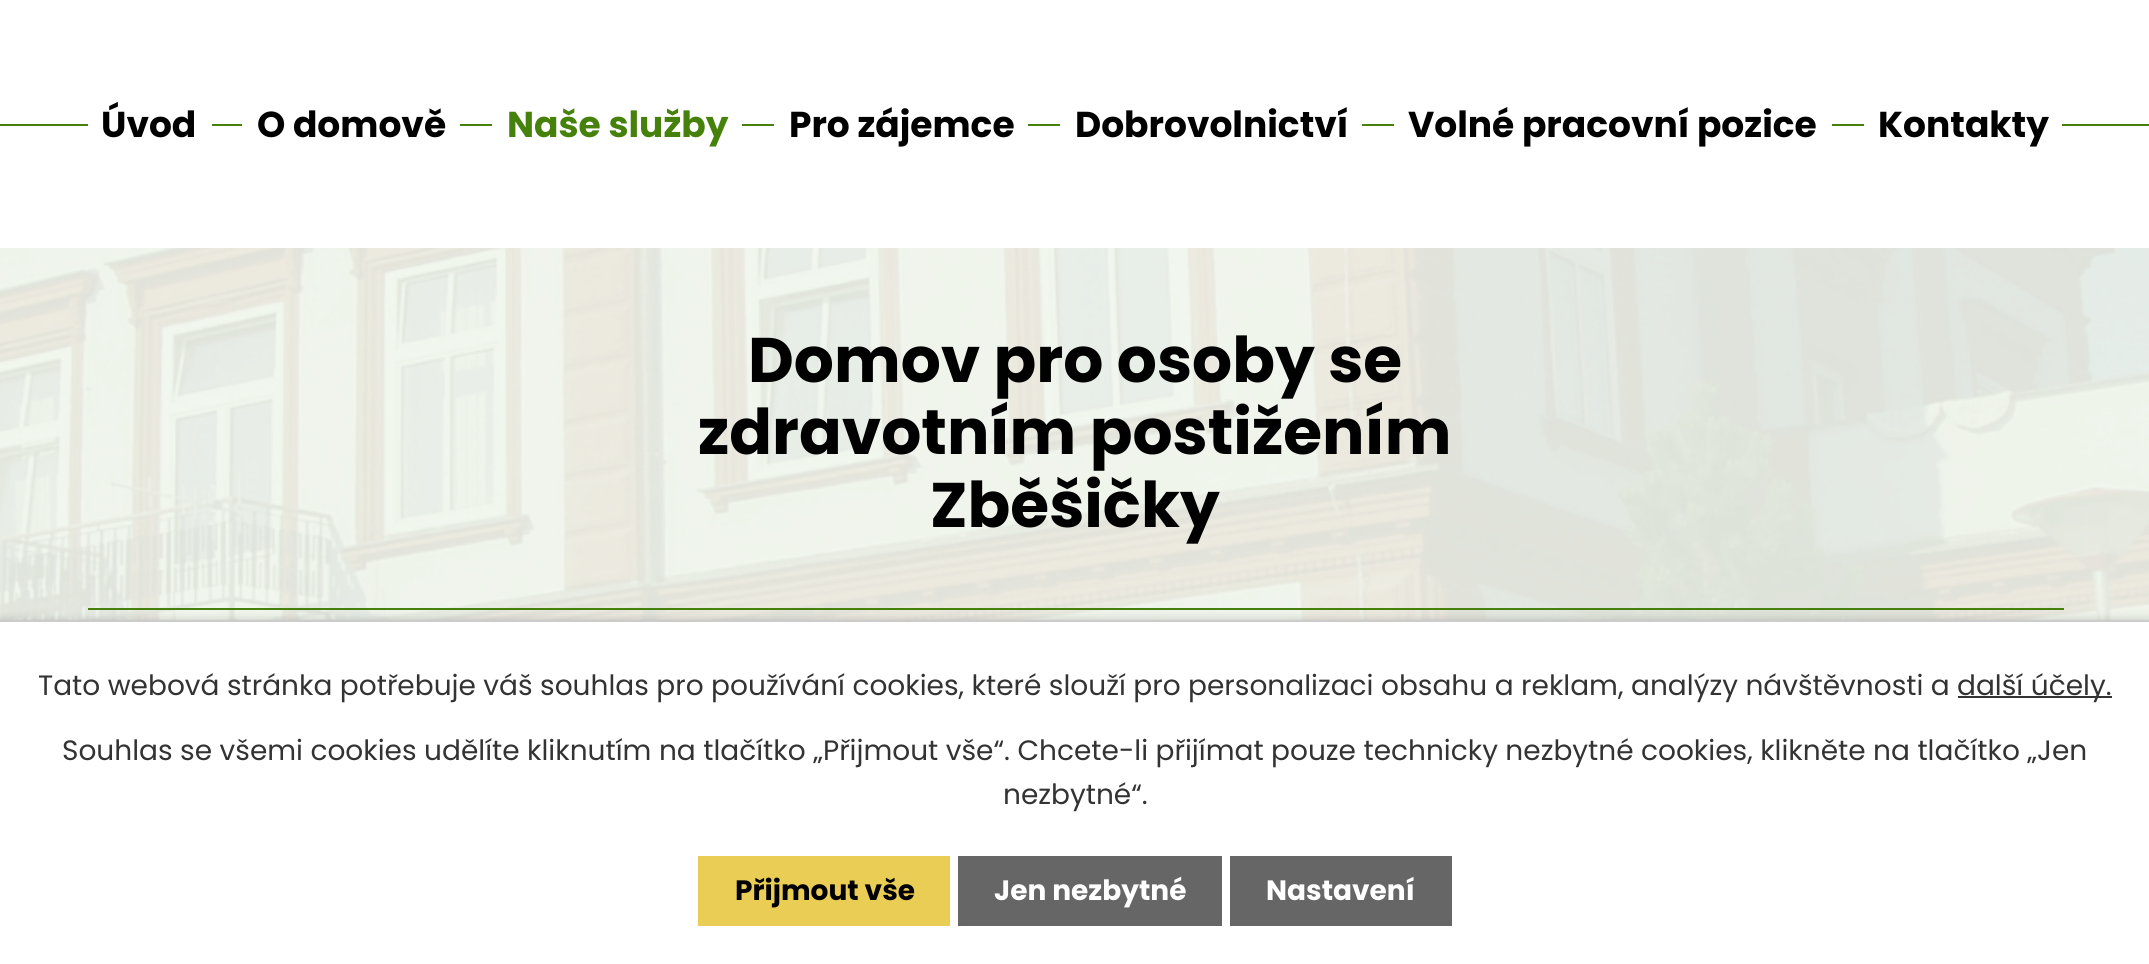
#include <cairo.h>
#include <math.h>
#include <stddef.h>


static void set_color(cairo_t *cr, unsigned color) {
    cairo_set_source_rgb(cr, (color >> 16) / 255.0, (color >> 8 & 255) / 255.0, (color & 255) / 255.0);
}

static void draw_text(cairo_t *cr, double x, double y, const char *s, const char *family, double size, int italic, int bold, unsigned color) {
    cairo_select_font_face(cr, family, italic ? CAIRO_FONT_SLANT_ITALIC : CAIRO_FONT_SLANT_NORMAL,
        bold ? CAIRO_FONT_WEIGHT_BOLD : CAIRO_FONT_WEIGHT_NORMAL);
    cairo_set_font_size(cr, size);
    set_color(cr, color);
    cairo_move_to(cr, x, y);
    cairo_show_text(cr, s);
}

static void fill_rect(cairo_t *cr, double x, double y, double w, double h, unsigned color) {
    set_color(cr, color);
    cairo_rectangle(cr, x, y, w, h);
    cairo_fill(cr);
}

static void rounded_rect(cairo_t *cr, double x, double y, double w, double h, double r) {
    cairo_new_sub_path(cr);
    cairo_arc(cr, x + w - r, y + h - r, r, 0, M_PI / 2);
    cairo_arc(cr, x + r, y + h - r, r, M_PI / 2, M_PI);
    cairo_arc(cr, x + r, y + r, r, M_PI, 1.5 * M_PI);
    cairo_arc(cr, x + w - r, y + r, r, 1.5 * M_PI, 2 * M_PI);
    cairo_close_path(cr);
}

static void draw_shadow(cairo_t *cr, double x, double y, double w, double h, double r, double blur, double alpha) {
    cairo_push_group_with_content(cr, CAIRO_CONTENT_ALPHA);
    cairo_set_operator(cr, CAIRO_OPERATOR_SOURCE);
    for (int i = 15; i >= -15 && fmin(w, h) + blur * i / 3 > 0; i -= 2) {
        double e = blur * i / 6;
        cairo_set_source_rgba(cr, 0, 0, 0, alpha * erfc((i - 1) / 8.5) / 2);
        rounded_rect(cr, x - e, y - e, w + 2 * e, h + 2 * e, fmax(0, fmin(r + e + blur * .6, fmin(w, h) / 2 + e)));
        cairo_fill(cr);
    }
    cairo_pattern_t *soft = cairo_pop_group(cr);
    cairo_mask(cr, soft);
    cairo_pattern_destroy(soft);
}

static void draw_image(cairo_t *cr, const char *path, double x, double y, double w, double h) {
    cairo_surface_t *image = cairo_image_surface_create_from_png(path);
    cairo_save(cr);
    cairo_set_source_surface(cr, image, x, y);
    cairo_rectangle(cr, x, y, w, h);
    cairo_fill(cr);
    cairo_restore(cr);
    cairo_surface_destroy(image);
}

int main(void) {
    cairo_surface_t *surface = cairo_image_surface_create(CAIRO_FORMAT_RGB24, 2149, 964);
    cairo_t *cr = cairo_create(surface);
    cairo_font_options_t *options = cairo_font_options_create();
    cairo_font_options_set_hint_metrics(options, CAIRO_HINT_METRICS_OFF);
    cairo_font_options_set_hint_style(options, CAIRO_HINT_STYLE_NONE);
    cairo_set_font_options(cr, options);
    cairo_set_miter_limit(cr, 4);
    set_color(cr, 0xFFFFFF);
    cairo_paint(cr);
    fill_rect(cr, 0, 124, 2149, 2, 0x46810C);
    fill_rect(cr, 88, 124, 124, 2, 0xFFFFFF);
    draw_text(cr, 101, 137, "Úvod", "Poppins", 36, 0, 1, 0x000000);
    fill_rect(cr, 242, 124, 218, 2, 0xFFFFFF);
    draw_text(cr, 257, 137, "O domově", "Poppins", 36, 0, 1, 0x000000);
    fill_rect(cr, 492, 124, 250, 2, 0xFFFFFF);
    draw_text(cr, 507, 137, "Naše služby", "Poppins", 36, 0, 1, 0x46810C);
    fill_rect(cr, 774, 124, 254, 2, 0xFFFFFF);
    draw_text(cr, 789, 137, "Pro zájemce", "Poppins", 36, 0, 1, 0x000000);
    fill_rect(cr, 1060, 124, 302, 2, 0xFFFFFF);
    draw_text(cr, 1075, 137, "Dobrovolnictví", "Poppins", 36, 0, 1, 0x000000);
    fill_rect(cr, 1394, 124, 438, 2, 0xFFFFFF);
    draw_text(cr, 1408, 137, "Volné pracovní pozice", "Poppins", 36, 0, 1, 0x000000);
    fill_rect(cr, 1864, 124, 198, 2, 0xFFFFFF);
    draw_text(cr, 1878, 137, "Kontakty", "Poppins", 36, 0, 1, 0x000000);
    draw_image(cr, "assets/img1.png", 0, 248, 2149, 372);
    fill_rect(cr, 88, 608, 1976, 2, 0x46810C);
    draw_text(cr, 748, 382, "Domov pro osoby se", "Poppins", 63, 0, 1, 0x000000);
    draw_text(cr, 698, 454, "zdravotním postižením", "Poppins", 63, 0, 1, 0x000000);
    draw_text(cr, 930, 527, "Zběšičky", "Poppins", 63, 0, 1, 0x000000);
    set_color(cr, 0x000000);
    draw_shadow(cr, 0, 620, 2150, 344, 0, 5, 0.2);
    fill_rect(cr, 0, 622, 2149, 342, 0xFFFFFF);
    fill_rect(cr, 0, 620, 2149, 2, 0xCCCCCC);
    draw_text(cr, 38, 695, "Tato webová stránka potřebuje váš souhlas pro používání cookies, které slouží pro personalizaci obsahu a reklam, analýzy návštěvnosti a", "Poppins", 28, 0, 0, 0x333333);
    fill_rect(cr, 1958, 696, 154, 2, 0x333333);
    draw_text(cr, 1957, 695, "další účely.", "Poppins", 28, 0, 0, 0x333333);
    draw_text(cr, 62, 760, "Souhlas se všemi cookies udělíte kliknutím na tlačítko „Přijmout vše“. Chcete-li přijímat pouze technicky nezbytné cookies, klikněte na tlačítko „Jen", "Poppins", 28, 0, 0, 0x333333);
    draw_text(cr, 1003, 804, "nezbytné“.", "Poppins", 28, 0, 0, 0x333333);
    fill_rect(cr, 698, 856, 252, 70, 0xEACD55);
    draw_text(cr, 735, 900, "Přijmout vše", "Poppins", 28, 0, 1, 0x000000);
    fill_rect(cr, 958, 856, 264, 70, 0x666666);
    draw_text(cr, 994, 900, "Jen nezbytné", "Poppins", 28, 0, 1, 0xFFFFFF);
    fill_rect(cr, 1230, 856, 222, 70, 0x666666);
    draw_text(cr, 1266, 900, "Nastavení", "Poppins", 28, 0, 1, 0xFFFFFF);
    cairo_surface_write_to_png(surface, "output.png");
    cairo_font_options_destroy(options);
    cairo_destroy(cr);
    cairo_surface_destroy(surface);
    return 0;
}
